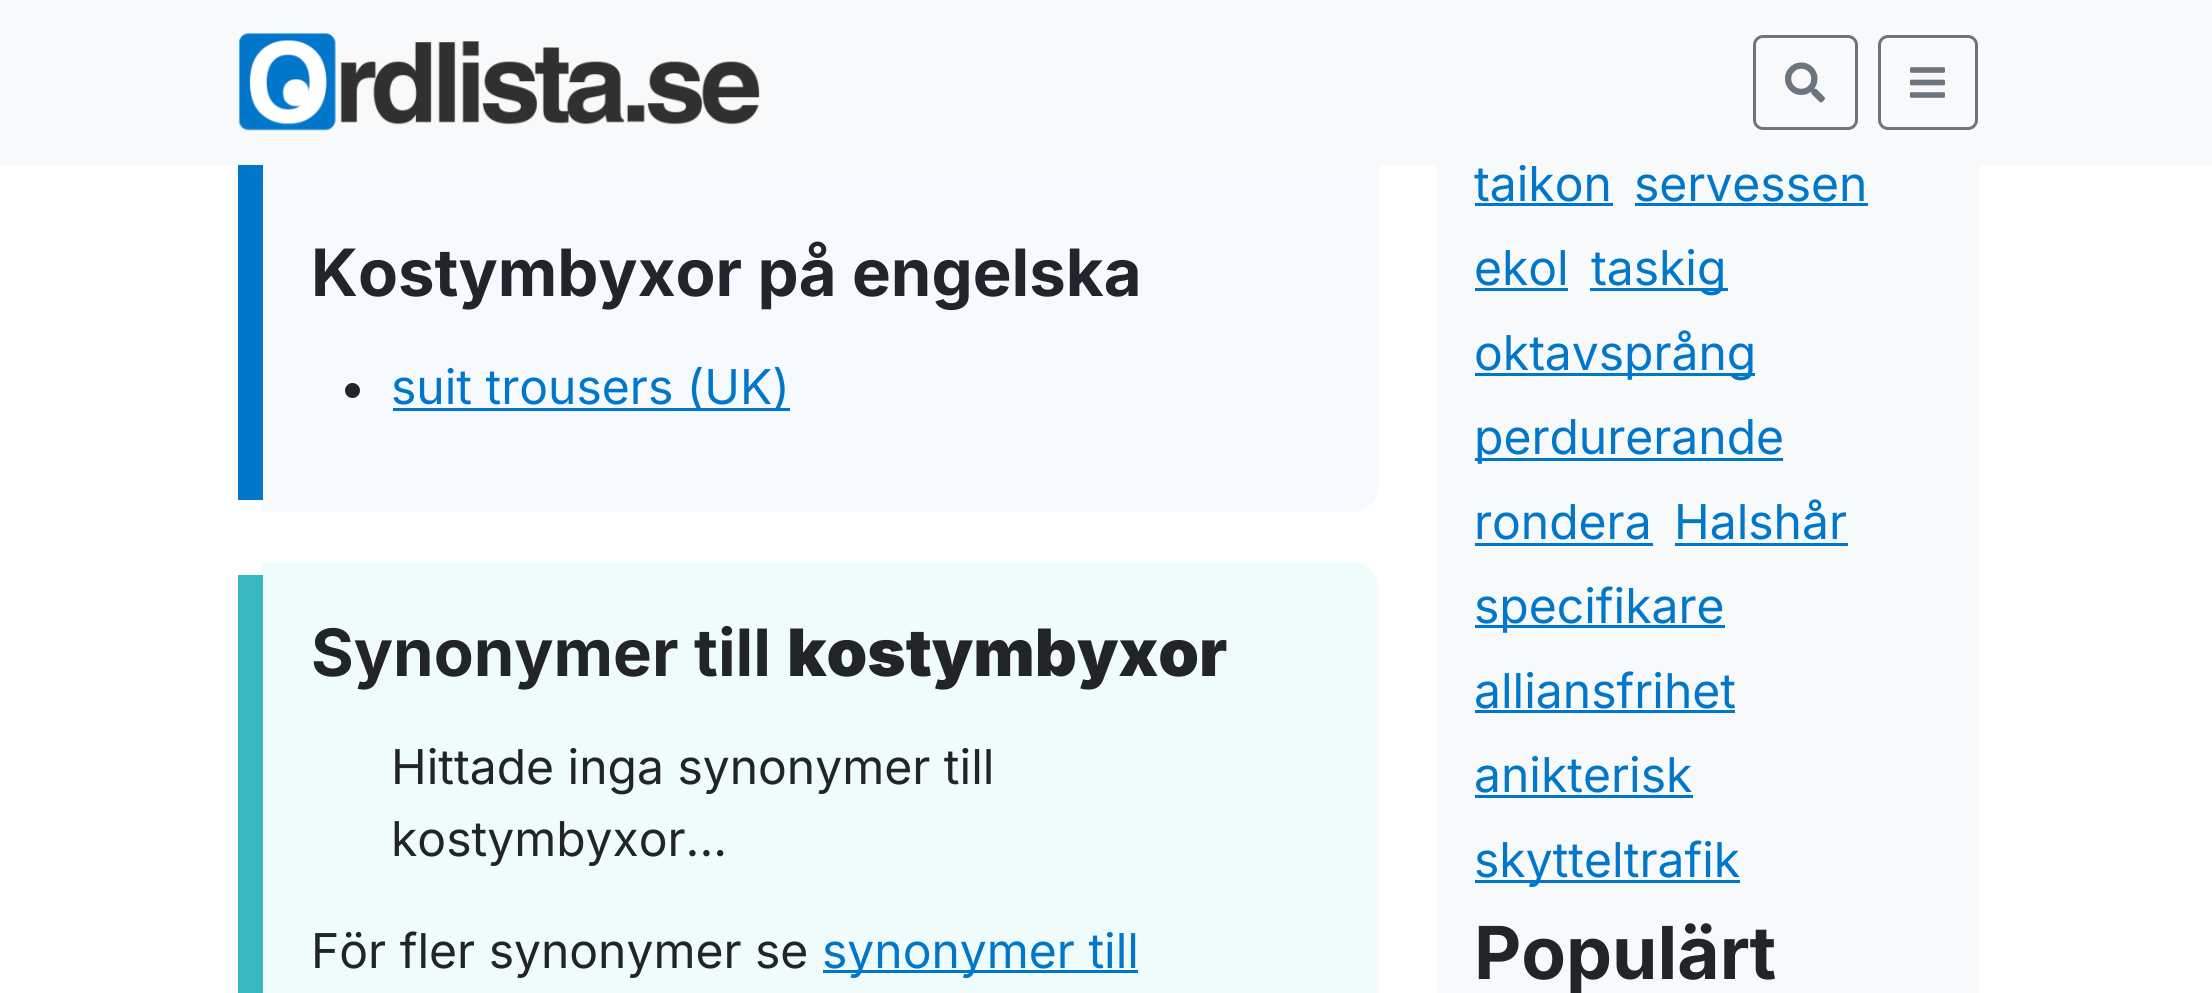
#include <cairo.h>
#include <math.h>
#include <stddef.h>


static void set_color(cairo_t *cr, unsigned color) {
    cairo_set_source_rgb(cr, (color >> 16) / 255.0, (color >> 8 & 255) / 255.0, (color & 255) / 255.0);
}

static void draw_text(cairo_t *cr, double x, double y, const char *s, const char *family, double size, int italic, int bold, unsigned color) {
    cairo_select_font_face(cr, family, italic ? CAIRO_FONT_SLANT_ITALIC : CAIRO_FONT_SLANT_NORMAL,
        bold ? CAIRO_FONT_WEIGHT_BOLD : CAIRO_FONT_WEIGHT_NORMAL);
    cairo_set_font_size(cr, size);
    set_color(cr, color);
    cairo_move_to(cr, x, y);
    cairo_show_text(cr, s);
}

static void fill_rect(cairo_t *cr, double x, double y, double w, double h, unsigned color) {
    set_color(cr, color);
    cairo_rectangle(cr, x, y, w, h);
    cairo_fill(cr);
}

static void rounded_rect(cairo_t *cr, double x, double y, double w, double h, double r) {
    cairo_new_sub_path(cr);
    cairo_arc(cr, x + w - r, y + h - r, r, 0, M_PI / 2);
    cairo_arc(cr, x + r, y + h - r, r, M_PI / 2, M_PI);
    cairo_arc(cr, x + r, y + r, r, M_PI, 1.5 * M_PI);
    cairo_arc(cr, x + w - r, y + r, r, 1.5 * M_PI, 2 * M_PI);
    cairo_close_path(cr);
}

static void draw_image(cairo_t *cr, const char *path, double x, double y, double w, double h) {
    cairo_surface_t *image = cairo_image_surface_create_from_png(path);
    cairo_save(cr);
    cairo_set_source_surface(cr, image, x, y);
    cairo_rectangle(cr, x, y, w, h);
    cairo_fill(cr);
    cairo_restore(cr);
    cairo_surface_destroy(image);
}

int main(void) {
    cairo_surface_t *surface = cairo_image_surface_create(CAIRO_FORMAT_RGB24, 2212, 993);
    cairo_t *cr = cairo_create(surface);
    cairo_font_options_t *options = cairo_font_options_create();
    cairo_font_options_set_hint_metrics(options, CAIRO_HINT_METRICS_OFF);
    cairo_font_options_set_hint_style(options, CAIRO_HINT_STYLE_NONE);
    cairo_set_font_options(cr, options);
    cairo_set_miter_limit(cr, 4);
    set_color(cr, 0xFFFFFF);
    cairo_paint(cr);
    set_color(cr, 0xF6FAFF);
    cairo_new_path(cr);
    cairo_move_to(cr, 262, 65);
    cairo_line_to(cr, 1352, 65);
    cairo_curve_to(cr, 1366, 65, 1378, 76, 1378, 90);
    cairo_line_to(cr, 1378, 488);
    cairo_curve_to(cr, 1378, 501, 1366, 512, 1352, 512);
    cairo_line_to(cr, 262, 512);
    cairo_close_path(cr);
    cairo_fill(cr);
    fill_rect(cr, 1438, 165, 540, 828, 0xF8F9FA);
    draw_text(cr, 1474, 201, "taikon", "Inter", 48, 0, 0, 0x0077CB);
    fill_rect(cr, 0, 0, 2212, 165, 0xF8F9FA);
    draw_image(cr, "assets/img1.png", 238, 33, 522, 98);
    rounded_rect(cr, 1754.5, 36.5, 102, 92, 8.5);
    set_color(cr, 0x6C757D);
    cairo_set_line_width(cr, 3);
    cairo_stroke(cr);
    draw_image(cr, "assets/img2.png", 1785, 62, 40, 41);
    rounded_rect(cr, 1879.5, 36.5, 97, 92, 8.5);
    cairo_stroke(cr);
    draw_image(cr, "assets/img3.png", 1910, 67, 35, 31);
    fill_rect(cr, 238, 165, 25, 335, 0x0077CB);
    draw_text(cr, 311, 296, "Kostymbyxor på engelska", "Inter", 65.25, 0, 1, 0x212529);
    cairo_new_path(cr);
    cairo_arc(cr, 352.5, 390.5, 7.5, 0, 2 * M_PI);
    cairo_fill(cr);
    fill_rect(cr, 393, 408, 397, 3, 0x0077CB);
    draw_text(cr, 391, 404, "suit trousers (UK)", "Inter", 48, 0, 0, 0x0077CB);
    set_color(cr, 0xF0FBFB);
    cairo_new_path(cr);
    cairo_move_to(cr, 262, 562);
    cairo_line_to(cr, 1352, 562);
    cairo_curve_to(cr, 1366, 562, 1378, 574, 1378, 588);
    cairo_line_to(cr, 1378, 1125);
    cairo_curve_to(cr, 1378, 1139, 1366, 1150, 1352, 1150);
    cairo_line_to(cr, 262, 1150);
    cairo_close_path(cr);
    cairo_fill(cr);
    fill_rect(cr, 238, 575, 25, 418, 0x38B7BE);
    draw_text(cr, 311, 676, "Synonymer till", "Inter", 65.25, 0, 1, 0x212529);
    draw_text(cr, 787, 676, "kostymbyxor", "Inter Black", 65.25, 0, 0, 0x212529);
    draw_text(cr, 391, 784, "Hittade inga synonymer till", "Inter", 48, 0, 0, 0x212529);
    draw_text(cr, 391, 856, "kostymbyxor...", "Inter", 48, 0, 0, 0x212529);
    draw_text(cr, 311, 968, "För fler synonymer se", "Inter", 48, 0, 0, 0x212529);
    fill_rect(cr, 823, 970, 315, 3, 0x0077CB);
    draw_text(cr, 822, 968, "synonymer till", "Inter", 48, 0, 0, 0x0077CB);
    fill_rect(cr, 1475, 203, 138, 3, 0x0077CB);
    draw_text(cr, 1634, 201, "servessen", "Inter", 48, 0, 0, 0x0077CB);
    fill_rect(cr, 1635, 203, 233, 3, 0x0077CB);
    draw_text(cr, 1474, 285, "ekol", "Inter", 48, 0, 0, 0x0077CB);
    fill_rect(cr, 1475, 288, 93, 3, 0x0077CB);
    fill_rect(cr, 1590, 288, 138, 3, 0x0077CB);
    draw_text(cr, 1591, 285, "taskig", "Inter", 48, 0, 0, 0x0077CB);
    fill_rect(cr, 1475, 373, 280, 3, 0x0077CB);
    draw_text(cr, 1474, 370, "oktavsprång", "Inter", 48, 0, 0, 0x0077CB);
    fill_rect(cr, 1475, 458, 308, 3, 0x0077CB);
    draw_text(cr, 1474, 454, "perdurerande", "Inter", 48, 0, 0, 0x0077CB);
    draw_text(cr, 1474, 539, "rondera", "Inter", 48, 0, 0, 0x0077CB);
    fill_rect(cr, 1475, 543, 178, 3, 0x0077CB);
    draw_text(cr, 1674, 539, "Halshår", "Inter", 48, 0, 0, 0x0077CB);
    fill_rect(cr, 1675, 543, 173, 3, 0x0077CB);
    fill_rect(cr, 1475, 625, 250, 3, 0x0077CB);
    draw_text(cr, 1474, 623, "specifikare", "Inter", 48, 0, 0, 0x0077CB);
    draw_text(cr, 1474, 708, "alliansfrihet", "Inter", 48, 0, 0, 0x0077CB);
    fill_rect(cr, 1475, 710, 260, 3, 0x0077CB);
    draw_text(cr, 1474, 792, "anikterisk", "Inter", 48, 0, 0, 0x0077CB);
    fill_rect(cr, 1475, 795, 218, 3, 0x0077CB);
    fill_rect(cr, 1475, 880, 265, 3, 0x0077CB);
    draw_text(cr, 1474, 877, "skytteltrafik", "Inter", 48, 0, 0, 0x0077CB);
    draw_text(cr, 1474, 979, "Populärt", "Inter", 73, 0, 1, 0x212529);
    cairo_surface_write_to_png(surface, "output.png");
    cairo_font_options_destroy(options);
    cairo_destroy(cr);
    cairo_surface_destroy(surface);
    return 0;
}
